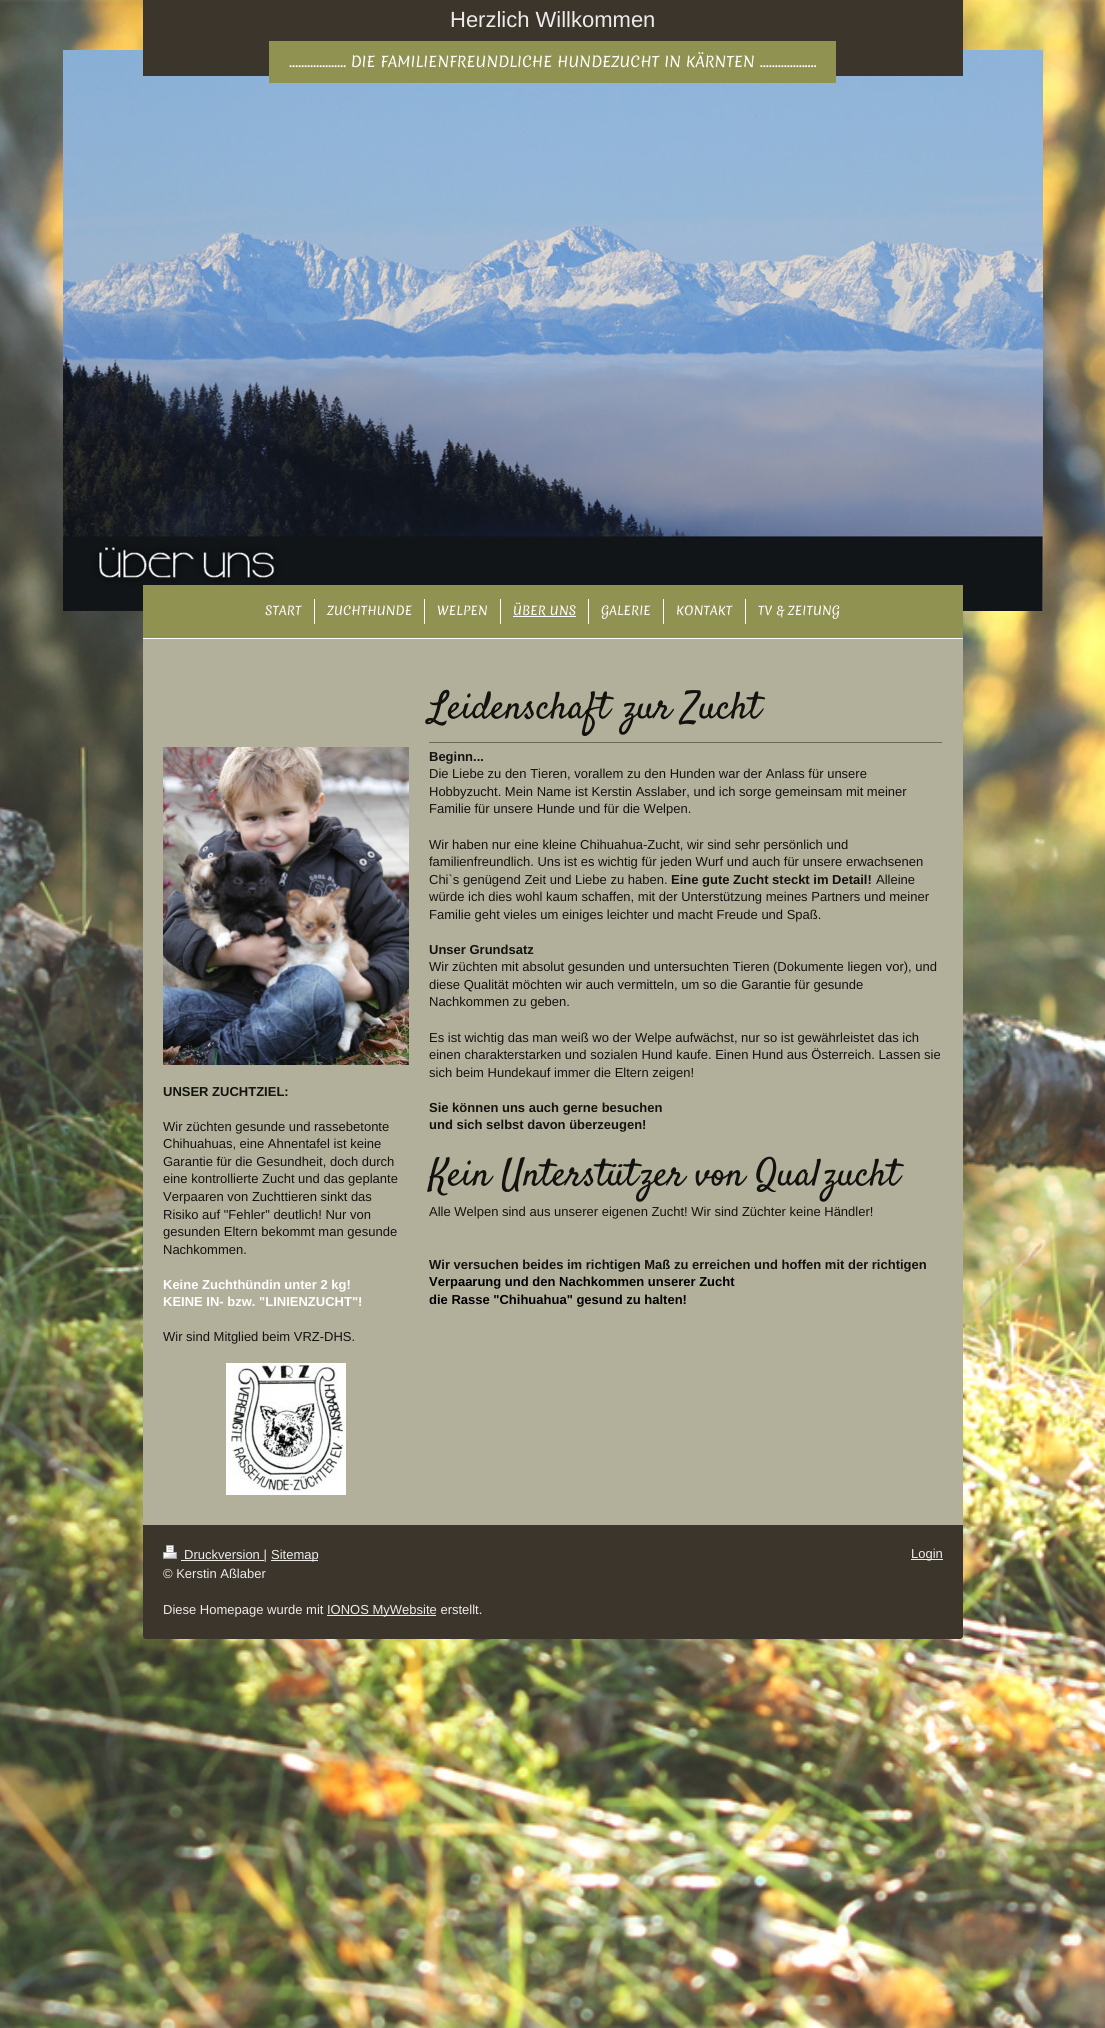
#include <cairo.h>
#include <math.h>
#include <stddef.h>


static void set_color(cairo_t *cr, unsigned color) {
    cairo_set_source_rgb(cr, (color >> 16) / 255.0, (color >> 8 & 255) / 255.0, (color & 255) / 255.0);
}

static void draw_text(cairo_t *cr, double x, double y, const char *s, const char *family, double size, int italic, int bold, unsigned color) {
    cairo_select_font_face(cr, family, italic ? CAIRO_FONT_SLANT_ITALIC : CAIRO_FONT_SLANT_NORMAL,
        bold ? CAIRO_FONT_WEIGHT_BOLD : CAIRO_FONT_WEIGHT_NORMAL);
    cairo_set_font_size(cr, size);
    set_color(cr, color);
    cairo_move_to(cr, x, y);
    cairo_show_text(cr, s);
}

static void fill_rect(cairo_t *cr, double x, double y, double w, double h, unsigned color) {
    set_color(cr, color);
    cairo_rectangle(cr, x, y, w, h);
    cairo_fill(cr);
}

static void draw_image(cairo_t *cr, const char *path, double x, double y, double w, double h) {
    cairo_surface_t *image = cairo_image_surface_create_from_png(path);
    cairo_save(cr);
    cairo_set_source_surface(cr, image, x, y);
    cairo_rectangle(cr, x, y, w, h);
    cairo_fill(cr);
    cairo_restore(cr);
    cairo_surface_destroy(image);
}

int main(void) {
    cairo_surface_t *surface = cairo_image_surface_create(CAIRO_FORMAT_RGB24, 1105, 2028);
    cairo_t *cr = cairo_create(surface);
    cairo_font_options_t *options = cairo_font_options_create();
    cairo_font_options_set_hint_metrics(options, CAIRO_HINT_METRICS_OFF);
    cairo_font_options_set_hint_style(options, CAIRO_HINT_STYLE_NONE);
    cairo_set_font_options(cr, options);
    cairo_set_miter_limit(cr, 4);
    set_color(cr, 0xFFFFFF);
    cairo_paint(cr);
    draw_image(cr, "assets/img1.png", 0, 0, 1105, 2028);
    draw_image(cr, "assets/img2.png", 63, 50, 980, 561);
    fill_rect(cr, 143, 0, 820, 76, 0x3C352B);
    draw_text(cr, 450, 27, "Herzlich Willkommen", "Liberation Sans", 22, 0, 0, 0xECEBEA);
    fill_rect(cr, 269, 41, 567, 42, 0x8F9251);
    draw_text(cr, 289, 67, "................... DIE FAMILIENFREUNDLICHE HUNDEZUCHT IN KÄRNTEN ...................", "Merienda", 14.4, 0, 0, 0xFFFFFF);
    fill_rect(cr, 143, 585, 820, 53, 0x8F9251);
    fill_rect(cr, 143, 638, 820, 1, 0xFFFFFF);
    draw_text(cr, 265, 615, "START", "Merienda", 12, 0, 0, 0xFFFFFF);
    fill_rect(cr, 314, 599, 1, 25, 0xFFFFFF);
    draw_text(cr, 327, 615, "ZUCHTHUNDE", "Merienda", 12, 0, 0, 0xFFFFFF);
    fill_rect(cr, 424, 599, 1, 25, 0xFFFFFF);
    draw_text(cr, 437, 615, "WELPEN", "Merienda", 12, 0, 0, 0xFFFFFF);
    fill_rect(cr, 500, 599, 1, 25, 0xFFFFFF);
    draw_text(cr, 513, 615, "ÜBER UNS", "Merienda", 12, 0, 0, 0xFFFFFF);
    fill_rect(cr, 513, 616, 63, 1, 0xFFFFFF);
    fill_rect(cr, 588, 599, 1, 25, 0xFFFFFF);
    draw_text(cr, 601, 615, "GALERIE", "Merienda", 12, 0, 0, 0xFFFFFF);
    fill_rect(cr, 663, 599, 1, 25, 0xFFFFFF);
    draw_text(cr, 676, 615, "KONTAKT", "Merienda", 12, 0, 0, 0xFFFFFF);
    fill_rect(cr, 745, 599, 1, 25, 0xFFFFFF);
    draw_text(cr, 758, 615, "TV & ZEITUNG", "Merienda", 12, 0, 0, 0xFFFFFF);
    fill_rect(cr, 143, 639, 820, 886, 0xB2AF9A);
    draw_image(cr, "assets/img3.png", 163, 747, 246, 318);
    draw_text(cr, 163, 1096, "UNSER ZUCHTZIEL:", "Liberation Sans", 13, 0, 1, 0x12120F);
    draw_text(cr, 163, 1131, "Wir züchten gesunde und rassebetonte", "Liberation Sans", 13, 0, 0, 0x12120F);
    draw_text(cr, 163, 1148, "Chihuahuas, eine Ahnentafel ist keine", "Liberation Sans", 13, 0, 0, 0x12120F);
    draw_text(cr, 163, 1166, "Garantie für die Gesundheit, doch durch", "Liberation Sans", 13, 0, 0, 0x12120F);
    draw_text(cr, 163, 1183, "eine kontrollierte Zucht und das geplante", "Liberation Sans", 13, 0, 0, 0x12120F);
    draw_text(cr, 163, 1201, "Verpaaren von Zuchttieren sinkt das", "Liberation Sans", 13, 0, 0, 0x12120F);
    draw_text(cr, 163, 1219, "Risiko auf \"Fehler\" deutlich! Nur von", "Liberation Sans", 13, 0, 0, 0x12120F);
    draw_text(cr, 163, 1236, "gesunden Eltern bekommt man gesunde", "Liberation Sans", 13, 0, 0, 0x12120F);
    draw_text(cr, 163, 1254, "Nachkommen.", "Liberation Sans", 13, 0, 0, 0x12120F);
    draw_text(cr, 163, 1289, "Keine Zuchthündin unter 2 kg!", "Liberation Sans", 13, 0, 1, 0xFFFFFF);
    draw_text(cr, 163, 1306, "KEINE IN- bzw. \"LINIENZUCHT\"!", "Liberation Sans", 13, 0, 1, 0xFFFFFF);
    draw_text(cr, 163, 1341, "Wir sind Mitglied beim VRZ-DHS.", "Liberation Sans", 13, 0, 0, 0x12120F);
    draw_image(cr, "assets/img4.png", 226, 1363, 120, 132);
    draw_text(cr, 429, 718, "Leidenschaft zur Zucht", "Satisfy", 38.4, 0, 0, 0x12120F);
    fill_rect(cr, 429, 742, 513, 1, 0x6D6A55);
    draw_text(cr, 429, 761, "Beginn...", "Liberation Sans", 13, 0, 1, 0x12120F);
    draw_text(cr, 429, 778, "Die Liebe zu den Tieren, vorallem zu den Hunden war der Anlass für unsere", "Liberation Sans", 13, 0, 0, 0x12120F);
    draw_text(cr, 429, 796, "Hobbyzucht. Mein Name ist Kerstin Asslaber, und ich sorge gemeinsam mit meiner", "Liberation Sans", 13, 0, 0, 0x12120F);
    draw_text(cr, 429, 813, "Familie für unsere Hunde und für die Welpen.", "Liberation Sans", 13, 0, 0, 0x12120F);
    draw_text(cr, 429, 849, "Wir haben nur eine kleine Chihuahua-Zucht, wir sind sehr persönlich und", "Liberation Sans", 13, 0, 0, 0x12120F);
    draw_text(cr, 429, 866, "familienfreundlich. Uns ist es wichtig für jeden Wurf und auch für unsere erwachsenen", "Liberation Sans", 13, 0, 0, 0x12120F);
    draw_text(cr, 429, 884, "Chi`s genügend Zeit und Liebe zu haben.", "Liberation Sans", 13, 0, 0, 0x12120F);
    draw_text(cr, 671, 884, "Eine gute Zucht steckt im Detail!", "Liberation Sans", 13, 0, 1, 0x12120F);
    draw_text(cr, 876, 884, "Alleine", "Liberation Sans", 13, 0, 0, 0x12120F);
    draw_text(cr, 429, 901, "würde ich dies wohl kaum schaffen, mit der Unterstützung meines Partners und meiner", "Liberation Sans", 13, 0, 0, 0x12120F);
    draw_text(cr, 429, 919, "Familie geht vieles um einiges leichter und macht Freude und Spaß.", "Liberation Sans", 13, 0, 0, 0x12120F);
    draw_text(cr, 429, 954, "Unser Grundsatz", "Liberation Sans", 13, 0, 1, 0x12120F);
    draw_text(cr, 429, 971, "Wir züchten mit absolut gesunden und untersuchten Tieren (Dokumente liegen vor), und", "Liberation Sans", 13, 0, 0, 0x12120F);
    draw_text(cr, 429, 989, "diese Qualität möchten wir auch vermitteln, um so die Garantie für gesunde", "Liberation Sans", 13, 0, 0, 0x12120F);
    draw_text(cr, 429, 1006, "Nachkommen zu geben.", "Liberation Sans", 13, 0, 0, 0x12120F);
    draw_text(cr, 429, 1042, "Es ist wichtig das man weiß wo der Welpe aufwächst, nur so ist gewährleistet das ich", "Liberation Sans", 13, 0, 0, 0x12120F);
    draw_text(cr, 429, 1059, "einen charakterstarken und sozialen Hund kaufe. Einen Hund aus Österreich. Lassen sie", "Liberation Sans", 13, 0, 0, 0x12120F);
    draw_text(cr, 429, 1077, "sich beim Hundekauf immer die Eltern zeigen!", "Liberation Sans", 13, 0, 0, 0x12120F);
    draw_text(cr, 429, 1112, "Sie können uns auch gerne besuchen", "Liberation Sans", 13, 0, 1, 0x12120F);
    draw_text(cr, 429, 1129, "und sich selbst davon überzeugen!", "Liberation Sans", 13, 0, 1, 0x12120F);
    draw_text(cr, 429, 1185, "Kein Unterstützer von Qualzucht", "Satisfy", 38.4, 0, 0, 0x12120F);
    draw_text(cr, 429, 1216, "Alle Welpen sind aus unserer eigenen Zucht! Wir sind Züchter keine Händler!", "Liberation Sans", 13, 0, 0, 0x12120F);
    draw_text(cr, 429, 1269, "Wir versuchen beides im richtigen Maß zu erreichen und hoffen mit der richtigen", "Liberation Sans", 13, 0, 1, 0x12120F);
    draw_text(cr, 429, 1286, "Verpaarung und den Nachkommen unserer Zucht", "Liberation Sans", 13, 0, 1, 0x000000);
    draw_text(cr, 429, 1304, "die Rasse \"Chihuahua\" gesund zu halten!", "Liberation Sans", 13, 0, 1, 0x000000);
    set_color(cr, 0x3C352B);
    cairo_new_path(cr);
    cairo_move_to(cr, 143, 1525);
    cairo_line_to(cr, 963, 1525);
    cairo_line_to(cr, 963, 1636);
    cairo_curve_to(cr, 963, 1637.5, 961.5, 1639, 960, 1639);
    cairo_line_to(cr, 146, 1639);
    cairo_curve_to(cr, 144.5, 1639, 143, 1637.5, 143, 1636);
    cairo_close_path(cr);
    cairo_fill(cr);
    draw_image(cr, "assets/img5.png", 163, 1545, 14, 14);
    fill_rect(cr, 181, 1560, 83, 1, 0xECEBEA);
    draw_text(cr, 184, 1559, "Druckversion |", "Liberation Sans", 13, 0, 0, 0xECEBEA);
    fill_rect(cr, 271, 1560, 47, 1, 0xECEBEA);
    draw_text(cr, 271, 1559, "Sitemap", "Liberation Sans", 13, 0, 0, 0xECEBEA);
    cairo_save(cr);
    cairo_rectangle(cr, 163, 1545, 780, 74);
    cairo_clip(cr);
    draw_text(cr, 163, 1578, "© Kerstin Aßlaber", "Liberation Sans", 13, 0, 0, 0xECEBEA);
    cairo_restore(cr);
    draw_text(cr, 163, 1614, "Diese Homepage wurde mit", "Liberation Sans", 13, 0, 0, 0xECEBEA);
    fill_rect(cr, 327, 1615, 109, 1, 0xECEBEA);
    draw_text(cr, 327, 1614, "IONOS MyWebsite erstellt.", "Liberation Sans", 13, 0, 0, 0xECEBEA);
    fill_rect(cr, 911, 1559, 32, 1, 0xECEBEA);
    draw_text(cr, 911, 1558, "Login", "Liberation Sans", 13, 0, 0, 0xECEBEA);
    cairo_surface_write_to_png(surface, "output.png");
    cairo_font_options_destroy(options);
    cairo_destroy(cr);
    cairo_surface_destroy(surface);
    return 0;
}
